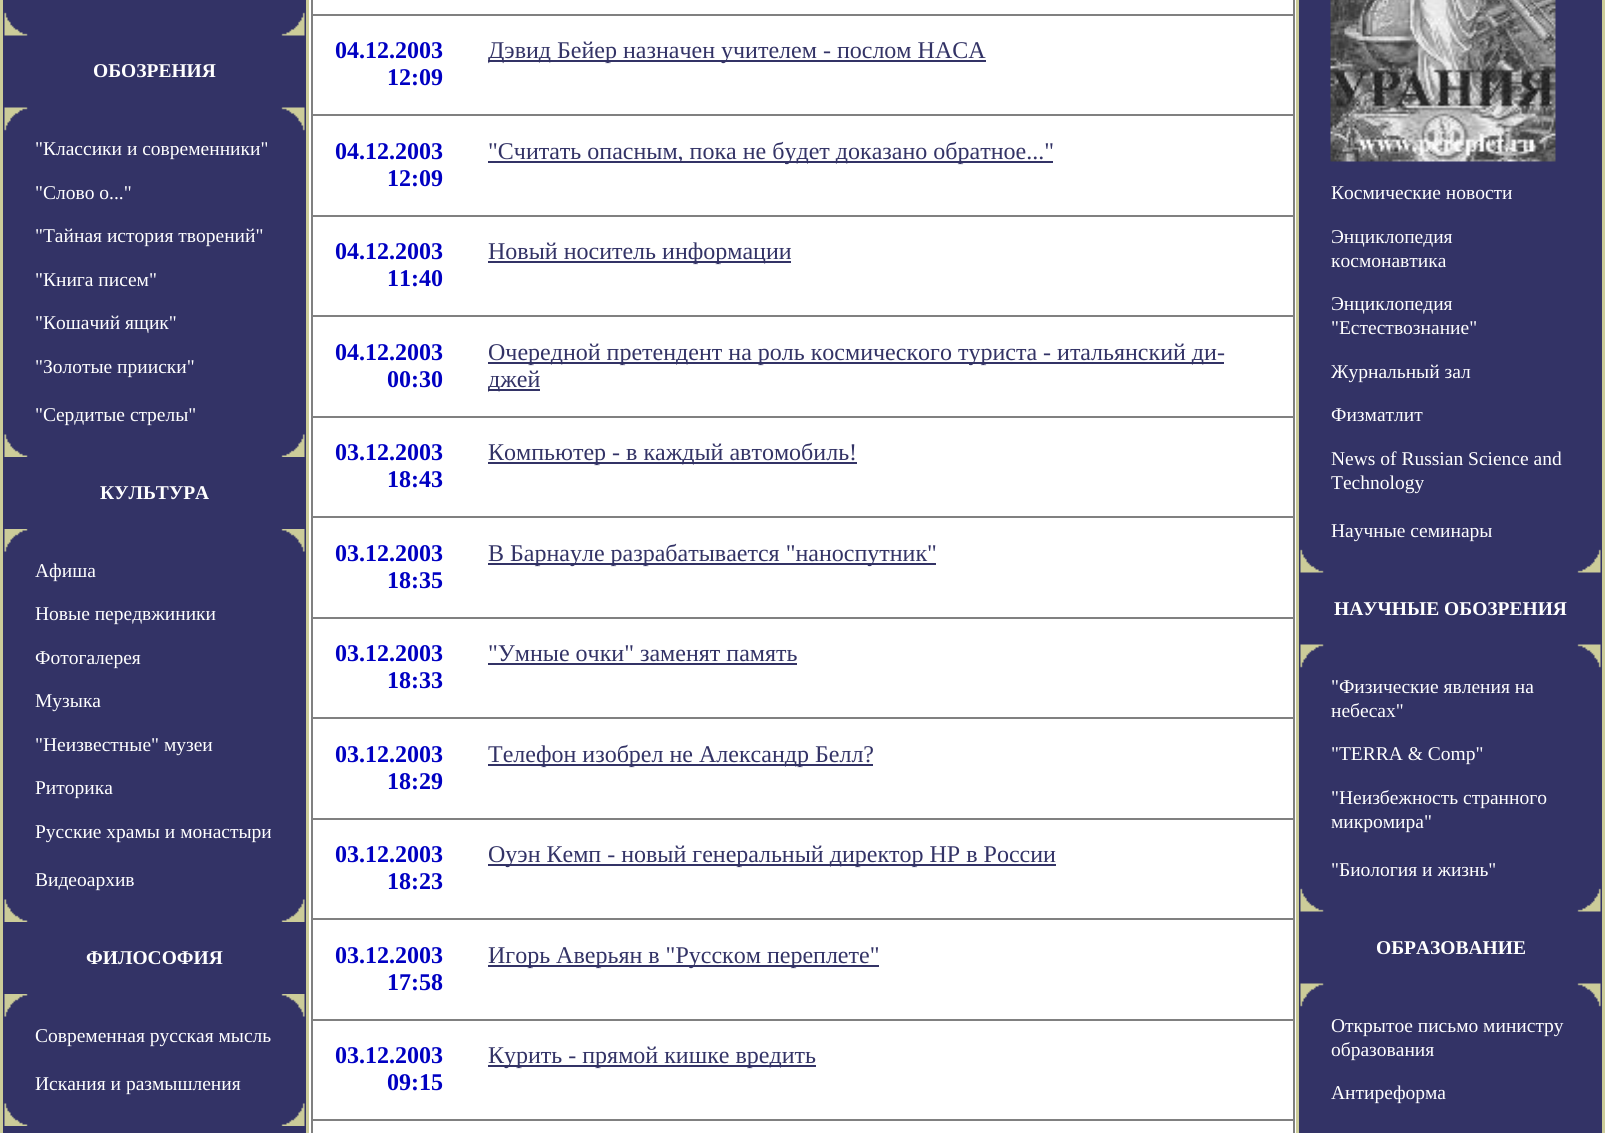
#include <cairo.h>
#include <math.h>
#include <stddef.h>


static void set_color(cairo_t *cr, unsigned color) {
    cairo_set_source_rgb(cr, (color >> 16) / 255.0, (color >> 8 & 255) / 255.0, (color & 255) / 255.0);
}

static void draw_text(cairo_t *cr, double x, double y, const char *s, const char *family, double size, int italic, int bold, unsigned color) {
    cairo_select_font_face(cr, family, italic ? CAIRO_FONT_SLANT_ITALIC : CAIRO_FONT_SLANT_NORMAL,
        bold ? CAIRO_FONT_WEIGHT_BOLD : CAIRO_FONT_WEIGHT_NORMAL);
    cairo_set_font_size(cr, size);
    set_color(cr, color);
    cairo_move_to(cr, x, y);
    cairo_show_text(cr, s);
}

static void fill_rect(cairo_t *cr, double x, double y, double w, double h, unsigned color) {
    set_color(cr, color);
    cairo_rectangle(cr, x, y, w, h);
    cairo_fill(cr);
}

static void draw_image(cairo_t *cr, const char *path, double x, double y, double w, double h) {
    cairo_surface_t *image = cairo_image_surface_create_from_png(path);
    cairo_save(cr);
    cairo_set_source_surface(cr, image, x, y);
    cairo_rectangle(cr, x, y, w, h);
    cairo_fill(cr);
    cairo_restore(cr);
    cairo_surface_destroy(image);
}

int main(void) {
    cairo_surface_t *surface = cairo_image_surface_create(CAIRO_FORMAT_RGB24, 1605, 1133);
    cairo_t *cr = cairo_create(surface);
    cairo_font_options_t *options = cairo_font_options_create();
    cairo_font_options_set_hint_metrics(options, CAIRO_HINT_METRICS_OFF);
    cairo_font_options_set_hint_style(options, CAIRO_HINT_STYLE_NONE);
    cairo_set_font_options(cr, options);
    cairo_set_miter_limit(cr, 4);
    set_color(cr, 0xCCCC99);
    cairo_paint(cr);
    fill_rect(cr, 3, 0, 303, 1133, 0x333366);
    draw_image(cr, "assets/img1.png", 4, 12, 24, 24);
    draw_image(cr, "assets/img2.png", 281, 12, 24, 24);
    draw_text(cr, 93, 77, "ОБОЗРЕНИЯ", "Liberation Serif", 19.5, 0, 1, 0xFFFFFF);
    draw_image(cr, "assets/img3.png", 4, 107, 24, 24);
    draw_image(cr, "assets/img4.png", 281, 107, 24, 24);
    draw_text(cr, 35, 155, "\"Классики и современники\"", "Liberation Serif", 19.5, 0, 0, 0xFFFFFF);
    draw_text(cr, 35, 199, "\"Слово о...\"", "Liberation Serif", 19.5, 0, 0, 0xFFFFFF);
    draw_text(cr, 35, 242, "\"Тайная история творений\"", "Liberation Serif", 19.5, 0, 0, 0xFFFFFF);
    draw_text(cr, 35, 286, "\"Книга писем\"", "Liberation Serif", 19.5, 0, 0, 0xFFFFFF);
    draw_text(cr, 35, 329, "\"Кошачий ящик\"", "Liberation Serif", 19.5, 0, 0, 0xFFFFFF);
    draw_text(cr, 35, 373, "\"Золотые прииски\"", "Liberation Serif", 19.5, 0, 0, 0xFFFFFF);
    draw_text(cr, 35, 421, "\"Сердитые стрелы\"", "Liberation Serif", 19.5, 0, 0, 0xFFFFFF);
    draw_image(cr, "assets/img5.png", 4, 434, 24, 23);
    draw_image(cr, "assets/img6.png", 281, 434, 24, 23);
    draw_text(cr, 100, 499, "КУЛЬТУРА", "Liberation Serif", 19.5, 0, 1, 0xFFFFFF);
    draw_image(cr, "assets/img7.png", 4, 529, 24, 23);
    draw_image(cr, "assets/img8.png", 281, 529, 24, 23);
    draw_text(cr, 35, 577, "Афиша", "Liberation Serif", 19.5, 0, 0, 0xFFFFFF);
    draw_text(cr, 35, 620, "Новые передвжиники", "Liberation Serif", 19.5, 0, 0, 0xFFFFFF);
    draw_text(cr, 35, 664, "Фотогалерея", "Liberation Serif", 19.5, 0, 0, 0xFFFFFF);
    draw_text(cr, 35, 707, "Музыка", "Liberation Serif", 19.5, 0, 0, 0xFFFFFF);
    draw_text(cr, 35, 751, "\"Неизвестные\" музеи", "Liberation Serif", 19.5, 0, 0, 0xFFFFFF);
    draw_text(cr, 35, 794, "Риторика", "Liberation Serif", 19.5, 0, 0, 0xFFFFFF);
    draw_text(cr, 35, 838, "Русские храмы и монастыри", "Liberation Serif", 19.5, 0, 0, 0xFFFFFF);
    draw_text(cr, 35, 886, "Видеоархив", "Liberation Serif", 19.5, 0, 0, 0xFFFFFF);
    draw_image(cr, "assets/img5.png", 4, 899, 24, 23);
    draw_image(cr, "assets/img6.png", 281, 899, 24, 23);
    draw_text(cr, 86, 964, "ФИЛОСОФИЯ", "Liberation Serif", 19.5, 0, 1, 0xFFFFFF);
    draw_image(cr, "assets/img7.png", 4, 994, 24, 23);
    draw_image(cr, "assets/img8.png", 281, 994, 24, 23);
    draw_text(cr, 35, 1042, "Современная русская мысль", "Liberation Serif", 19.5, 0, 0, 0xFFFFFF);
    draw_text(cr, 35, 1090, "Искания и размышления", "Liberation Serif", 19.5, 0, 0, 0xFFFFFF);
    draw_image(cr, "assets/img5.png", 4, 1103, 24, 23);
    draw_image(cr, "assets/img6.png", 281, 1103, 24, 23);
    fill_rect(cr, 309, 0, 987, 1133, 0xFFFFFF);
    fill_rect(cr, 1293, 0, 2, 1133, 0x808080);
    fill_rect(cr, 311, 0, 2, 1133, 0x808080);
    draw_text(cr, 335, 58, "04.12.2003", "Liberation Serif", 24, 0, 1, 0x0000C2);
    draw_text(cr, 387, 85, "12:09", "Liberation Serif", 24, 0, 1, 0x0000C2);
    fill_rect(cr, 311, 14, 984, 2, 0x808080);
    fill_rect(cr, 488, 60, 498, 2, 0x333366);
    draw_text(cr, 488, 58, "Дэвид Бейер назначен учителем - послом НАСА", "Liberation Serif", 24, 0, 0, 0x333366);
    draw_text(cr, 335, 159, "04.12.2003", "Liberation Serif", 24, 0, 1, 0x0000C2);
    draw_text(cr, 387, 186, "12:09", "Liberation Serif", 24, 0, 1, 0x0000C2);
    fill_rect(cr, 311, 114, 984, 2, 0x808080);
    fill_rect(cr, 488, 161, 565, 2, 0x333366);
    draw_text(cr, 488, 159, "\"Считать опасным, пока не будет доказано обратное...\"", "Liberation Serif", 24, 0, 0, 0x333366);
    draw_text(cr, 335, 259, "04.12.2003", "Liberation Serif", 24, 0, 1, 0x0000C2);
    draw_text(cr, 387, 286, "11:40", "Liberation Serif", 24, 0, 1, 0x0000C2);
    fill_rect(cr, 311, 215, 984, 2, 0x808080);
    fill_rect(cr, 488, 261, 303, 2, 0x333366);
    draw_text(cr, 488, 259, "Новый носитель информации", "Liberation Serif", 24, 0, 0, 0x333366);
    draw_text(cr, 335, 360, "04.12.2003", "Liberation Serif", 24, 0, 1, 0x0000C2);
    draw_text(cr, 387, 387, "00:30", "Liberation Serif", 24, 0, 1, 0x0000C2);
    fill_rect(cr, 311, 315, 984, 2, 0x808080);
    fill_rect(cr, 488, 362, 736, 2, 0x333366);
    draw_text(cr, 488, 360, "Очередной претендент на роль космического туриста - итальянский ди-", "Liberation Serif", 24, 0, 0, 0x333366);
    fill_rect(cr, 488, 389, 52, 2, 0x333366);
    draw_text(cr, 488, 387, "джей", "Liberation Serif", 24, 0, 0, 0x333366);
    draw_text(cr, 335, 460, "03.12.2003", "Liberation Serif", 24, 0, 1, 0x0000C2);
    draw_text(cr, 387, 487, "18:43", "Liberation Serif", 24, 0, 1, 0x0000C2);
    fill_rect(cr, 311, 416, 984, 2, 0x808080);
    fill_rect(cr, 488, 462, 369, 2, 0x333366);
    draw_text(cr, 488, 460, "Компьютер - в каждый автомобиль!", "Liberation Serif", 24, 0, 0, 0x333366);
    draw_text(cr, 335, 561, "03.12.2003", "Liberation Serif", 24, 0, 1, 0x0000C2);
    draw_text(cr, 387, 588, "18:35", "Liberation Serif", 24, 0, 1, 0x0000C2);
    fill_rect(cr, 311, 516, 984, 2, 0x808080);
    fill_rect(cr, 488, 563, 448, 2, 0x333366);
    draw_text(cr, 488, 561, "В Барнауле разрабатывается \"наноспутник\"", "Liberation Serif", 24, 0, 0, 0x333366);
    draw_text(cr, 335, 661, "03.12.2003", "Liberation Serif", 24, 0, 1, 0x0000C2);
    draw_text(cr, 387, 688, "18:33", "Liberation Serif", 24, 0, 1, 0x0000C2);
    fill_rect(cr, 311, 617, 984, 2, 0x808080);
    draw_text(cr, 488, 661, "\"Умные очки\" заменят память", "Liberation Serif", 24, 0, 0, 0x333366);
    fill_rect(cr, 488, 663, 309, 2, 0x333366);
    draw_text(cr, 335, 762, "03.12.2003", "Liberation Serif", 24, 0, 1, 0x0000C2);
    draw_text(cr, 387, 789, "18:29", "Liberation Serif", 24, 0, 1, 0x0000C2);
    fill_rect(cr, 311, 717, 984, 2, 0x808080);
    fill_rect(cr, 488, 764, 385, 2, 0x333366);
    draw_text(cr, 488, 762, "Телефон изобрел не Александр Белл?", "Liberation Serif", 24, 0, 0, 0x333366);
    draw_text(cr, 335, 862, "03.12.2003", "Liberation Serif", 24, 0, 1, 0x0000C2);
    draw_text(cr, 387, 889, "18:23", "Liberation Serif", 24, 0, 1, 0x0000C2);
    fill_rect(cr, 311, 818, 984, 2, 0x808080);
    fill_rect(cr, 488, 864, 568, 2, 0x333366);
    draw_text(cr, 488, 862, "Оуэн Кемп - новый генеральный директор НР в России", "Liberation Serif", 24, 0, 0, 0x333366);
    draw_text(cr, 335, 963, "03.12.2003", "Liberation Serif", 24, 0, 1, 0x0000C2);
    draw_text(cr, 387, 990, "17:58", "Liberation Serif", 24, 0, 1, 0x0000C2);
    fill_rect(cr, 311, 918, 984, 2, 0x808080);
    fill_rect(cr, 488, 965, 391, 2, 0x333366);
    draw_text(cr, 488, 963, "Игорь Аверьян в \"Русском переплете\"", "Liberation Serif", 24, 0, 0, 0x333366);
    draw_text(cr, 335, 1063, "03.12.2003", "Liberation Serif", 24, 0, 1, 0x0000C2);
    draw_text(cr, 387, 1090, "09:15", "Liberation Serif", 24, 0, 1, 0x0000C2);
    fill_rect(cr, 311, 1019, 984, 2, 0x808080);
    fill_rect(cr, 488, 1065, 328, 2, 0x333366);
    draw_text(cr, 488, 1063, "Курить - прямой кишке вредить", "Liberation Serif", 24, 0, 0, 0x333366);
    fill_rect(cr, 311, 1119, 984, 2, 0x808080);
    fill_rect(cr, 1299, 0, 303, 1133, 0x333366);
    draw_image(cr, "assets/img9.png", 1330, 0, 226, 162);
    draw_text(cr, 1331, 199, "Космические новости", "Liberation Serif", 19.5, 0, 0, 0xFFFFFF);
    draw_text(cr, 1331, 243, "Энциклопедия", "Liberation Serif", 19.5, 0, 0, 0xFFFFFF);
    draw_text(cr, 1331, 267, "космонавтика", "Liberation Serif", 19.5, 0, 0, 0xFFFFFF);
    draw_text(cr, 1331, 310, "Энциклопедия", "Liberation Serif", 19.5, 0, 0, 0xFFFFFF);
    draw_text(cr, 1331, 334, "\"Естествознание\"", "Liberation Serif", 19.5, 0, 0, 0xFFFFFF);
    draw_text(cr, 1331, 378, "Журнальный зал", "Liberation Serif", 19.5, 0, 0, 0xFFFFFF);
    draw_text(cr, 1331, 421, "Физматлит", "Liberation Serif", 19.5, 0, 0, 0xFFFFFF);
    draw_text(cr, 1331, 465, "News of Russian Science and", "Liberation Serif", 19.5, 0, 0, 0xFFFFFF);
    draw_text(cr, 1331, 489, "Technology", "Liberation Serif", 19.5, 0, 0, 0xFFFFFF);
    draw_text(cr, 1331, 537, "Научные семинары", "Liberation Serif", 19.5, 0, 0, 0xFFFFFF);
    draw_image(cr, "assets/img10.png", 1300, 549, 24, 24);
    draw_image(cr, "assets/img2.png", 1577, 549, 24, 24);
    draw_text(cr, 1334, 615, "НАУЧНЫЕ ОБОЗРЕНИЯ", "Liberation Serif", 19.5, 0, 1, 0xFFFFFF);
    draw_image(cr, "assets/img11.png", 1300, 644, 24, 24);
    draw_image(cr, "assets/img4.png", 1577, 644, 24, 24);
    draw_text(cr, 1331, 693, "\"Физические явления на", "Liberation Serif", 19.5, 0, 0, 0xFFFFFF);
    draw_text(cr, 1331, 717, "небесах\"", "Liberation Serif", 19.5, 0, 0, 0xFFFFFF);
    draw_text(cr, 1331, 760, "\"TERRA & Comp\"", "Liberation Serif", 19.5, 0, 0, 0xFFFFFF);
    draw_text(cr, 1331, 804, "\"Неизбежность странного", "Liberation Serif", 19.5, 0, 0, 0xFFFFFF);
    draw_text(cr, 1331, 828, "микромира\"", "Liberation Serif", 19.5, 0, 0, 0xFFFFFF);
    draw_text(cr, 1331, 876, "\"Биология и жизнь\"", "Liberation Serif", 19.5, 0, 0, 0xFFFFFF);
    draw_image(cr, "assets/img10.png", 1300, 888, 24, 24);
    draw_image(cr, "assets/img2.png", 1577, 888, 24, 24);
    draw_text(cr, 1376, 954, "ОБРАЗОВАНИЕ", "Liberation Serif", 19.5, 0, 1, 0xFFFFFF);
    draw_image(cr, "assets/img11.png", 1300, 983, 24, 24);
    draw_image(cr, "assets/img4.png", 1577, 983, 24, 24);
    draw_text(cr, 1331, 1032, "Открытое письмо министру", "Liberation Serif", 19.5, 0, 0, 0xFFFFFF);
    draw_text(cr, 1331, 1056, "образования", "Liberation Serif", 19.5, 0, 0, 0xFFFFFF);
    draw_text(cr, 1331, 1099, "Антиреформа", "Liberation Serif", 19.5, 0, 0, 0xFFFFFF);
    cairo_surface_write_to_png(surface, "output.png");
    cairo_font_options_destroy(options);
    cairo_destroy(cr);
    cairo_surface_destroy(surface);
    return 0;
}
